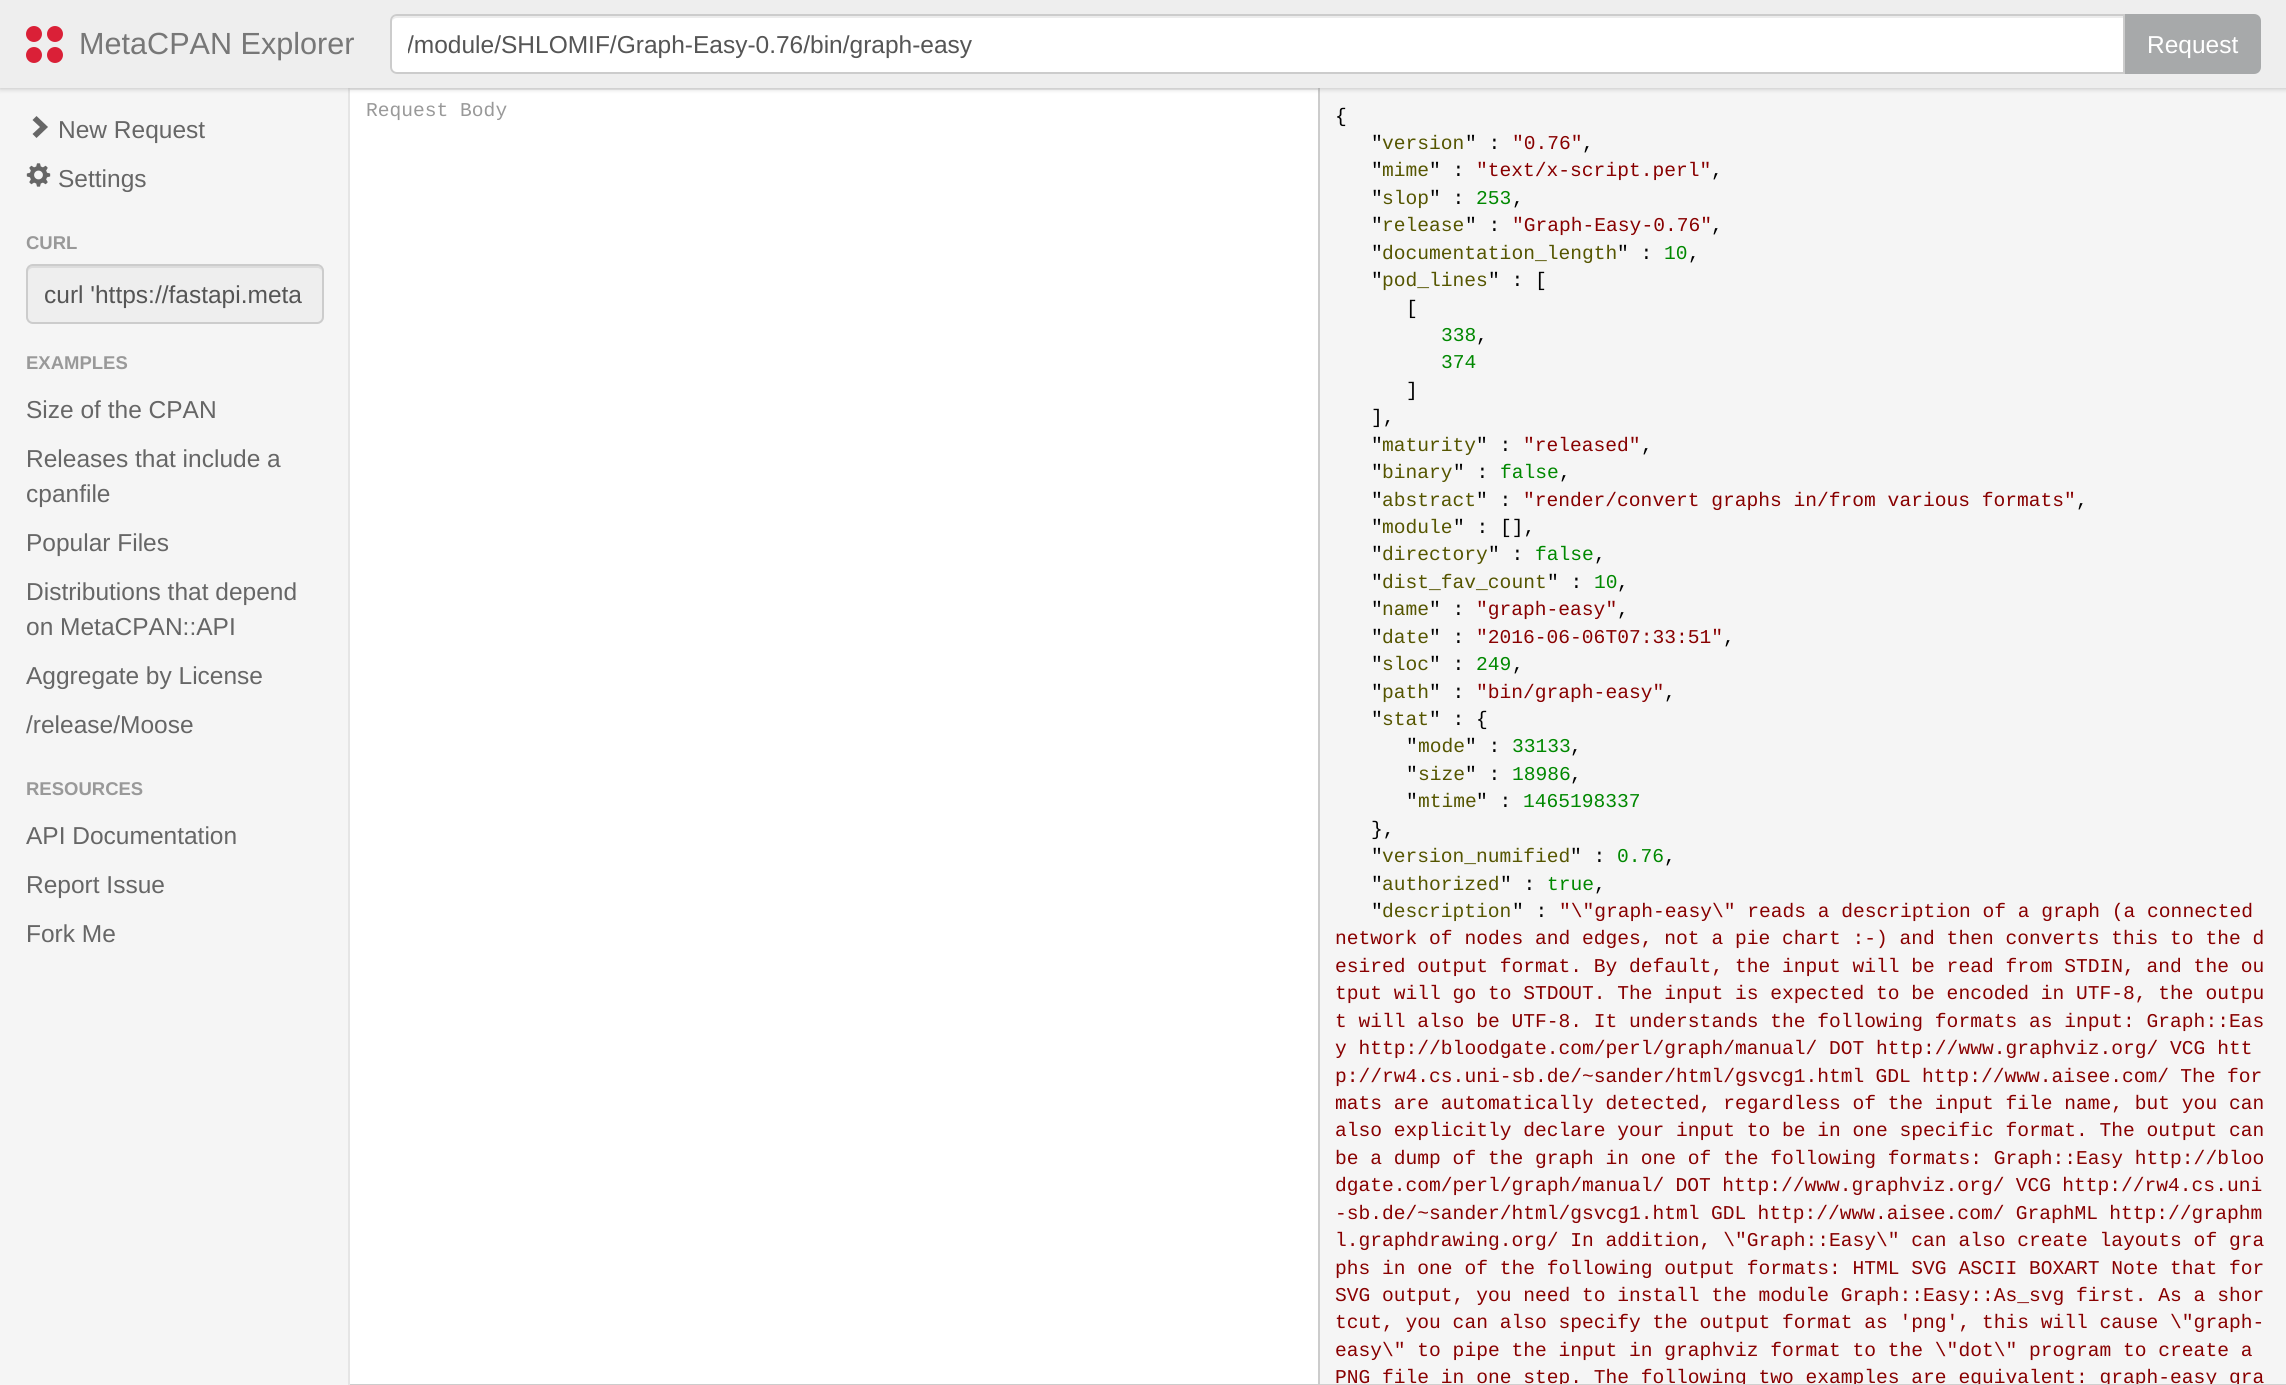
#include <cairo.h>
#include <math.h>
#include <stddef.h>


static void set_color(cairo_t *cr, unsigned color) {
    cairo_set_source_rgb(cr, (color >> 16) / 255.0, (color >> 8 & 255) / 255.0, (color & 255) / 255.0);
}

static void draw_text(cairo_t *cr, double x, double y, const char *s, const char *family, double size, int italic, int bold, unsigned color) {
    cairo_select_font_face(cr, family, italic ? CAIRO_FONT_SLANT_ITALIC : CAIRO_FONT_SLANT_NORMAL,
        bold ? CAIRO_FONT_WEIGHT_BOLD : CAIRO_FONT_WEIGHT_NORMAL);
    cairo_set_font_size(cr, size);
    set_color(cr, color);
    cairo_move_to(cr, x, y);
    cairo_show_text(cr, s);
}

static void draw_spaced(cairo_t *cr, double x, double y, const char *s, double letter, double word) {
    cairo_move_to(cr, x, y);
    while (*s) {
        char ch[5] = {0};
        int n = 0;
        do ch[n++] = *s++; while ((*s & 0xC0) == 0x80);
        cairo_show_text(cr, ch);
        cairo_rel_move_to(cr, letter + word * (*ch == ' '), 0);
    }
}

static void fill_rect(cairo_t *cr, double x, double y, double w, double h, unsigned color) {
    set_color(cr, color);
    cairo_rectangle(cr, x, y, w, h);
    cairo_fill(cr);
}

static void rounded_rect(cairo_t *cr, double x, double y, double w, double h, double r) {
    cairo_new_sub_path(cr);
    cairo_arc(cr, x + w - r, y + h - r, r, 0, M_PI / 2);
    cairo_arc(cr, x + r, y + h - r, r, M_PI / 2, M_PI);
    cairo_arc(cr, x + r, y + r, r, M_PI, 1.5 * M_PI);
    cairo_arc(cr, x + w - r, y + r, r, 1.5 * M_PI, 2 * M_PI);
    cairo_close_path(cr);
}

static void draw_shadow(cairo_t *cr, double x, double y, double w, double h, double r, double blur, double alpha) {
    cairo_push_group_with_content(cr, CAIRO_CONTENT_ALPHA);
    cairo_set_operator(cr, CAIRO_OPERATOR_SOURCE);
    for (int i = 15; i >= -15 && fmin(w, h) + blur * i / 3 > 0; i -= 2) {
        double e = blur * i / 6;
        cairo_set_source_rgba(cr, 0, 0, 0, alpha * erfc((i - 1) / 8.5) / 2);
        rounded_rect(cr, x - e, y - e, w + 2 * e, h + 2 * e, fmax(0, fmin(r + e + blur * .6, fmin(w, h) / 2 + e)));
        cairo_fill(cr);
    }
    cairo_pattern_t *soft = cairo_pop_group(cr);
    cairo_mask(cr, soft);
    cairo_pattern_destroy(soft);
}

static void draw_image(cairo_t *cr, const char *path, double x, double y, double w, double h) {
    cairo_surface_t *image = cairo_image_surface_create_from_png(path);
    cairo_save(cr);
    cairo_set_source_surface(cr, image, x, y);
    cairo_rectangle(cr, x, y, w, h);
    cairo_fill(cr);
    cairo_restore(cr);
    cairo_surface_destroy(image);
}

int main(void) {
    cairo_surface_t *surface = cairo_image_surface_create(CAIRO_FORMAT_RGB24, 2286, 1385);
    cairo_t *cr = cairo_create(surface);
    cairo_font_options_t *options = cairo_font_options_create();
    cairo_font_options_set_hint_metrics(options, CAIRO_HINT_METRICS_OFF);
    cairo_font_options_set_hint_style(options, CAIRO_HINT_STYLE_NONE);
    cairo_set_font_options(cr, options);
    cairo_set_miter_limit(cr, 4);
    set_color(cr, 0xFFFFFF);
    cairo_paint(cr);
    fill_rect(cr, 0, 88, 348, 1297, 0xF5F5F5);
    fill_rect(cr, 348, 88, 2, 1297, 0xE5E5E5);
    fill_rect(cr, 350, 88, 968, 2, 0xECECEC);
    fill_rect(cr, 1318, 86, 2, 1299, 0xCCCCCC);
    fill_rect(cr, 1320, 88, 966, 1296, 0xF5F5F5);
    set_color(cr, 0x000000);
    draw_shadow(cr, 0, 2, 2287, 87, 0, 2.5, 0.2);
    fill_rect(cr, 0, 0, 2286, 88, 0xEEEEEE);
    set_color(cr, 0xDA2037);
    cairo_arc(cr, 34, 34, 8, 0, 2 * M_PI);
    cairo_fill(cr);
    cairo_arc(cr, 55, 34, 8, 0, 2 * M_PI);
    cairo_fill(cr);
    cairo_arc(cr, 34, 55, 8, 0, 2 * M_PI);
    cairo_fill(cr);
    cairo_arc(cr, 55, 55, 8, 0, 2 * M_PI);
    cairo_fill(cr);
    draw_text(cr, 79, 54, "MetaCPAN Explorer", "Liberation Sans", 30.6, 0, 0, 0x777777);
    set_color(cr, 0xFFFFFF);
    cairo_new_path(cr);
    cairo_move_to(cr, 397, 14);
    cairo_line_to(cr, 2125, 14);
    cairo_line_to(cr, 2125, 74);
    cairo_line_to(cr, 397, 74);
    cairo_curve_to(cr, 393, 74, 390, 71, 390, 67);
    cairo_line_to(cr, 390, 21);
    cairo_curve_to(cr, 390, 17, 393, 14, 397, 14);
    cairo_close_path(cr);
    cairo_fill(cr);
    set_color(cr, 0xECECEC);
    cairo_new_path(cr);
    cairo_move_to(cr, 397, 18);
    cairo_line_to(cr, 2123, 18);
    cairo_line_to(cr, 2123, 16);
    cairo_line_to(cr, 397, 16);
    cairo_curve_to(cr, 393, 16, 392, 20, 392, 23);
    cairo_curve_to(cr, 392, 20, 394, 18, 397, 18);
    cairo_close_path(cr);
    cairo_fill(cr);
    cairo_new_path(cr);
    cairo_move_to(cr, 397, 15);
    cairo_line_to(cr, 2124, 15);
    cairo_line_to(cr, 2124, 73);
    cairo_line_to(cr, 397, 73);
    cairo_curve_to(cr, 393.5, 73, 391, 70.5, 391, 67);
    cairo_line_to(cr, 391, 21);
    cairo_curve_to(cr, 391, 17.5, 393.5, 15, 397, 15);
    cairo_close_path(cr);
    set_color(cr, 0xCCCCCC);
    cairo_stroke(cr);
    cairo_save(cr);
    cairo_rectangle(cr, 408, 26, 1699, 35);
    cairo_clip(cr);
    draw_text(cr, 407, 53, "/module/SHLOMIF/Graph-Easy-0.76/bin/graph-easy", "Liberation Sans", 24.5, 0, 0, 0x555555);
    cairo_restore(cr);
    set_color(cr, 0xA7A9AA);
    cairo_new_path(cr);
    cairo_move_to(cr, 2126, 15);
    cairo_line_to(cr, 2254, 15);
    cairo_curve_to(cr, 2257.5, 15, 2260, 17.5, 2260, 21);
    cairo_line_to(cr, 2260, 67);
    cairo_curve_to(cr, 2260, 70.5, 2257.5, 73, 2254, 73);
    cairo_line_to(cr, 2126, 73);
    cairo_close_path(cr);
    cairo_fill_preserve(cr);
    cairo_stroke(cr);
    draw_text(cr, 2147, 53, "Request", "Liberation Sans", 24.5, 0, 0, 0xFFFFFF);
    set_color(cr, 0x666666);
    cairo_new_path(cr);
    cairo_move_to(cr, 32.5, 134);
    cairo_line_to(cr, 36.5, 138);
    cairo_line_to(cr, 48, 127);
    cairo_line_to(cr, 36.5, 116);
    cairo_line_to(cr, 32.5, 120);
    cairo_line_to(cr, 40, 127);
    cairo_close_path(cr);
    cairo_fill(cr);
    draw_text(cr, 58, 138, "New Request", "Liberation Sans", 24.5, 0, 0, 0x666666);
    draw_image(cr, "assets/img1.png", 26, 163, 25, 24);
    draw_text(cr, 58, 187, "Settings", "Liberation Sans", 24.5, 0, 0, 0x666666);
    draw_text(cr, 26, 249, "CURL", "Liberation Sans", 18.5, 0, 1, 0x999999);
    set_color(cr, 0xEEEEEE);
    rounded_rect(cr, 26, 264, 298, 60, 7);
    cairo_fill(cr);
    set_color(cr, 0xDCDCDC);
    cairo_new_path(cr);
    cairo_move_to(cr, 33, 268);
    cairo_line_to(cr, 317, 268);
    cairo_curve_to(cr, 320, 268, 322, 270, 322, 273);
    cairo_curve_to(cr, 322, 270, 321, 266, 317, 266);
    cairo_line_to(cr, 32, 266);
    cairo_curve_to(cr, 28, 267, 28, 270, 28, 273);
    cairo_curve_to(cr, 28, 270, 30, 268, 33, 268);
    cairo_close_path(cr);
    cairo_fill(cr);
    rounded_rect(cr, 27, 265, 296, 58, 6);
    set_color(cr, 0xCCCCCC);
    cairo_stroke(cr);
    draw_text(cr, 44, 303, "curl 'https://fastapi.meta", "Liberation Sans", 24.5, 0, 0, 0x555555);
    draw_text(cr, 26, 369, "EXAMPLES", "Liberation Sans", 18.5, 0, 1, 0x999999);
    draw_text(cr, 26, 418, "Size of the CPAN", "Liberation Sans", 24.5, 0, 0, 0x666666);
    draw_text(cr, 26, 467, "Releases that include a", "Liberation Sans", 24.5, 0, 0, 0x666666);
    draw_text(cr, 26, 502, "cpanfile", "Liberation Sans", 24.5, 0, 0, 0x666666);
    draw_text(cr, 26, 551, "Popular Files", "Liberation Sans", 24.5, 0, 0, 0x666666);
    draw_text(cr, 26, 600, "Distributions that depend", "Liberation Sans", 24.5, 0, 0, 0x666666);
    draw_text(cr, 26, 635, "on MetaCPAN::API", "Liberation Sans", 24.5, 0, 0, 0x666666);
    draw_text(cr, 26, 684, "Aggregate by License", "Liberation Sans", 24.5, 0, 0, 0x666666);
    draw_text(cr, 26, 733, "/release/Moose", "Liberation Sans", 24.5, 0, 0, 0x666666);
    draw_text(cr, 26, 795, "RESOURCES", "Liberation Sans", 18.5, 0, 1, 0x999999);
    draw_text(cr, 26, 844, "API Documentation", "Liberation Sans", 24.5, 0, 0, 0x666666);
    draw_text(cr, 26, 893, "Report Issue", "Liberation Sans", 24.5, 0, 0, 0x666666);
    draw_text(cr, 26, 942, "Fork Me", "Liberation Sans", 24.5, 0, 0, 0x666666);
    fill_rect(cr, 350, 1384, 970, 1, 0xCCCCCC);
    draw_text(cr, 366, 116, "Request Body", "Liberation Mono", 19.6, 0, 0, 0x999999);
    set_color(cr, 0xD0D0D0);
    cairo_new_path(cr);
    cairo_move_to(cr, 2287, 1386);
    cairo_line_to(cr, 1320, 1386);
    cairo_line_to(cr, 1320, 1384);
    cairo_line_to(cr, 2286, 1384);
    cairo_close_path(cr);
    cairo_fill(cr);
    draw_text(cr, 1335, 122, "{", "Liberation Mono", 19.6, 0, 0, 0x000000);
    draw_text(cr, 1371, 149, "\"", "Liberation Mono", 19.6, 0, 0, 0x000000);
    draw_text(cr, 1382, 149, "version", "Liberation Mono", 19.6, 0, 0, 0x555500);
    draw_text(cr, 1465, 149, "\" :", "Liberation Mono", 19.6, 0, 0, 0x000000);
    draw_text(cr, 1512, 149, "\"0.76\"", "Liberation Mono", 19.6, 0, 0, 0x880000);
    draw_text(cr, 1582, 149, ",", "Liberation Mono", 19.6, 0, 0, 0x000000);
    draw_text(cr, 1371, 176, "\"", "Liberation Mono", 19.6, 0, 0, 0x000000);
    draw_text(cr, 1382, 176, "mime", "Liberation Mono", 19.6, 0, 0, 0x555500);
    draw_text(cr, 1429, 176, "\" :", "Liberation Mono", 19.6, 0, 0, 0x000000);
    draw_text(cr, 1476, 176, "\"text/x-script.perl\"", "Liberation Mono", 19.6, 0, 0, 0x880000);
    draw_text(cr, 1711, 176, ",", "Liberation Mono", 19.6, 0, 0, 0x000000);
    draw_text(cr, 1371, 204, "\"", "Liberation Mono", 19.6, 0, 0, 0x000000);
    draw_text(cr, 1382, 204, "slop", "Liberation Mono", 19.6, 0, 0, 0x555500);
    draw_text(cr, 1429, 204, "\" :", "Liberation Mono", 19.6, 0, 0, 0x000000);
    draw_text(cr, 1476, 204, "253", "Liberation Mono", 19.6, 0, 0, 0x008800);
    draw_text(cr, 1512, 204, ",", "Liberation Mono", 19.6, 0, 0, 0x000000);
    draw_text(cr, 1371, 231, "\"", "Liberation Mono", 19.6, 0, 0, 0x000000);
    draw_text(cr, 1382, 231, "release", "Liberation Mono", 19.6, 0, 0, 0x555500);
    draw_text(cr, 1465, 231, "\" :", "Liberation Mono", 19.6, 0, 0, 0x000000);
    draw_text(cr, 1512, 231, "\"Graph-Easy-0.76\"", "Liberation Mono", 19.6, 0, 0, 0x880000);
    draw_text(cr, 1711, 231, ",", "Liberation Mono", 19.6, 0, 0, 0x000000);
    draw_text(cr, 1371, 259, "\"", "Liberation Mono", 19.6, 0, 0, 0x000000);
    draw_text(cr, 1382, 259, "documentation_length", "Liberation Mono", 19.6, 0, 0, 0x555500);
    draw_text(cr, 1617, 259, "\" :", "Liberation Mono", 19.6, 0, 0, 0x000000);
    draw_text(cr, 1664, 259, "10", "Liberation Mono", 19.6, 0, 0, 0x008800);
    draw_text(cr, 1688, 259, ",", "Liberation Mono", 19.6, 0, 0, 0x000000);
    draw_text(cr, 1371, 286, "\"", "Liberation Mono", 19.6, 0, 0, 0x000000);
    draw_text(cr, 1382, 286, "pod_lines", "Liberation Mono", 19.6, 0, 0, 0x555500);
    draw_text(cr, 1488, 286, "\" : [", "Liberation Mono", 19.6, 0, 0, 0x000000);
    draw_text(cr, 1406, 314, "[", "Liberation Mono", 19.6, 0, 0, 0x000000);
    draw_text(cr, 1441, 341, "338", "Liberation Mono", 19.6, 0, 0, 0x008800);
    draw_text(cr, 1476, 341, ",", "Liberation Mono", 19.6, 0, 0, 0x000000);
    draw_text(cr, 1441, 368, "374", "Liberation Mono", 19.6, 0, 0, 0x008800);
    draw_text(cr, 1406, 396, "]", "Liberation Mono", 19.6, 0, 0, 0x000000);
    draw_text(cr, 1371, 423, "],", "Liberation Mono", 19.6, 0, 0, 0x000000);
    draw_text(cr, 1371, 451, "\"", "Liberation Mono", 19.6, 0, 0, 0x000000);
    draw_text(cr, 1382, 451, "maturity", "Liberation Mono", 19.6, 0, 0, 0x555500);
    draw_text(cr, 1476, 451, "\" :", "Liberation Mono", 19.6, 0, 0, 0x000000);
    draw_text(cr, 1523, 451, "\"released\"", "Liberation Mono", 19.6, 0, 0, 0x880000);
    draw_text(cr, 1641, 451, ",", "Liberation Mono", 19.6, 0, 0, 0x000000);
    draw_text(cr, 1371, 478, "\"", "Liberation Mono", 19.6, 0, 0, 0x000000);
    draw_text(cr, 1382, 478, "binary", "Liberation Mono", 19.6, 0, 0, 0x555500);
    draw_text(cr, 1453, 478, "\" :", "Liberation Mono", 19.6, 0, 0, 0x000000);
    draw_text(cr, 1500, 478, "false", "Liberation Mono", 19.6, 0, 0, 0x008800);
    draw_text(cr, 1559, 478, ",", "Liberation Mono", 19.6, 0, 0, 0x000000);
    draw_text(cr, 1371, 506, "\"", "Liberation Mono", 19.6, 0, 0, 0x000000);
    draw_text(cr, 1382, 506, "abstract", "Liberation Mono", 19.6, 0, 0, 0x555500);
    draw_text(cr, 1476, 506, "\" :", "Liberation Mono", 19.6, 0, 0, 0x000000);
    draw_text(cr, 1523, 506, "\"render/convert graphs in/from various formats\"", "Liberation Mono", 19.6, 0, 0, 0x880000);
    draw_text(cr, 2076, 506, ",", "Liberation Mono", 19.6, 0, 0, 0x000000);
    draw_text(cr, 1371, 533, "\"", "Liberation Mono", 19.6, 0, 0, 0x000000);
    draw_text(cr, 1382, 533, "module", "Liberation Mono", 19.6, 0, 0, 0x555500);
    draw_text(cr, 1453, 533, "\" : [],", "Liberation Mono", 19.6, 0, 0, 0x000000);
    draw_text(cr, 1371, 560, "\"", "Liberation Mono", 19.6, 0, 0, 0x000000);
    draw_text(cr, 1382, 560, "directory", "Liberation Mono", 19.6, 0, 0, 0x555500);
    draw_text(cr, 1488, 560, "\" :", "Liberation Mono", 19.6, 0, 0, 0x000000);
    draw_text(cr, 1535, 560, "false", "Liberation Mono", 19.6, 0, 0, 0x008800);
    draw_text(cr, 1594, 560, ",", "Liberation Mono", 19.6, 0, 0, 0x000000);
    draw_text(cr, 1371, 588, "\"", "Liberation Mono", 19.6, 0, 0, 0x000000);
    draw_text(cr, 1382, 588, "dist_fav_count", "Liberation Mono", 19.6, 0, 0, 0x555500);
    draw_text(cr, 1547, 588, "\" :", "Liberation Mono", 19.6, 0, 0, 0x000000);
    draw_text(cr, 1594, 588, "10", "Liberation Mono", 19.6, 0, 0, 0x008800);
    draw_text(cr, 1617, 588, ",", "Liberation Mono", 19.6, 0, 0, 0x000000);
    draw_text(cr, 1371, 615, "\"", "Liberation Mono", 19.6, 0, 0, 0x000000);
    draw_text(cr, 1382, 615, "name", "Liberation Mono", 19.6, 0, 0, 0x555500);
    draw_text(cr, 1429, 615, "\" :", "Liberation Mono", 19.6, 0, 0, 0x000000);
    draw_text(cr, 1476, 615, "\"graph-easy\"", "Liberation Mono", 19.6, 0, 0, 0x880000);
    draw_text(cr, 1617, 615, ",", "Liberation Mono", 19.6, 0, 0, 0x000000);
    draw_text(cr, 1371, 643, "\"", "Liberation Mono", 19.6, 0, 0, 0x000000);
    draw_text(cr, 1382, 643, "date", "Liberation Mono", 19.6, 0, 0, 0x555500);
    draw_text(cr, 1429, 643, "\" :", "Liberation Mono", 19.6, 0, 0, 0x000000);
    draw_text(cr, 1476, 643, "\"2016-06-06T07:33:51\"", "Liberation Mono", 19.6, 0, 0, 0x880000);
    draw_text(cr, 1723, 643, ",", "Liberation Mono", 19.6, 0, 0, 0x000000);
    draw_text(cr, 1371, 670, "\"", "Liberation Mono", 19.6, 0, 0, 0x000000);
    draw_text(cr, 1382, 670, "sloc", "Liberation Mono", 19.6, 0, 0, 0x555500);
    draw_text(cr, 1429, 670, "\" :", "Liberation Mono", 19.6, 0, 0, 0x000000);
    draw_text(cr, 1476, 670, "249", "Liberation Mono", 19.6, 0, 0, 0x008800);
    draw_text(cr, 1512, 670, ",", "Liberation Mono", 19.6, 0, 0, 0x000000);
    draw_text(cr, 1371, 698, "\"", "Liberation Mono", 19.6, 0, 0, 0x000000);
    draw_text(cr, 1382, 698, "path", "Liberation Mono", 19.6, 0, 0, 0x555500);
    draw_text(cr, 1429, 698, "\" :", "Liberation Mono", 19.6, 0, 0, 0x000000);
    draw_text(cr, 1476, 698, "\"bin/graph-easy\"", "Liberation Mono", 19.6, 0, 0, 0x880000);
    draw_text(cr, 1664, 698, ",", "Liberation Mono", 19.6, 0, 0, 0x000000);
    draw_text(cr, 1371, 725, "\"", "Liberation Mono", 19.6, 0, 0, 0x000000);
    draw_text(cr, 1382, 725, "stat", "Liberation Mono", 19.6, 0, 0, 0x555500);
    draw_text(cr, 1429, 725, "\" : {", "Liberation Mono", 19.6, 0, 0, 0x000000);
    draw_text(cr, 1406, 752, "\"", "Liberation Mono", 19.6, 0, 0, 0x000000);
    draw_text(cr, 1418, 752, "mode", "Liberation Mono", 19.6, 0, 0, 0x555500);
    draw_text(cr, 1465, 752, "\" :", "Liberation Mono", 19.6, 0, 0, 0x000000);
    draw_text(cr, 1512, 752, "33133", "Liberation Mono", 19.6, 0, 0, 0x008800);
    draw_text(cr, 1570, 752, ",", "Liberation Mono", 19.6, 0, 0, 0x000000);
    draw_text(cr, 1406, 780, "\"", "Liberation Mono", 19.6, 0, 0, 0x000000);
    draw_text(cr, 1418, 780, "size", "Liberation Mono", 19.6, 0, 0, 0x555500);
    draw_text(cr, 1465, 780, "\" :", "Liberation Mono", 19.6, 0, 0, 0x000000);
    draw_text(cr, 1512, 780, "18986", "Liberation Mono", 19.6, 0, 0, 0x008800);
    draw_text(cr, 1570, 780, ",", "Liberation Mono", 19.6, 0, 0, 0x000000);
    draw_text(cr, 1406, 807, "\"", "Liberation Mono", 19.6, 0, 0, 0x000000);
    draw_text(cr, 1418, 807, "mtime", "Liberation Mono", 19.6, 0, 0, 0x555500);
    draw_text(cr, 1476, 807, "\" :", "Liberation Mono", 19.6, 0, 0, 0x000000);
    draw_text(cr, 1523, 807, "1465198337", "Liberation Mono", 19.6, 0, 0, 0x008800);
    draw_text(cr, 1371, 835, "},", "Liberation Mono", 19.6, 0, 0, 0x000000);
    draw_text(cr, 1371, 862, "\"", "Liberation Mono", 19.6, 0, 0, 0x000000);
    draw_text(cr, 1382, 862, "version_numified", "Liberation Mono", 19.6, 0, 0, 0x555500);
    draw_text(cr, 1570, 862, "\" :", "Liberation Mono", 19.6, 0, 0, 0x000000);
    draw_text(cr, 1617, 862, "0.76", "Liberation Mono", 19.6, 0, 0, 0x008800);
    draw_text(cr, 1664, 862, ",", "Liberation Mono", 19.6, 0, 0, 0x000000);
    draw_text(cr, 1371, 890, "\"", "Liberation Mono", 19.6, 0, 0, 0x000000);
    draw_text(cr, 1382, 890, "authorized", "Liberation Mono", 19.6, 0, 0, 0x555500);
    draw_text(cr, 1500, 890, "\" :", "Liberation Mono", 19.6, 0, 0, 0x000000);
    draw_text(cr, 1547, 890, "true", "Liberation Mono", 19.6, 0, 0, 0x008800);
    draw_text(cr, 1594, 890, ",", "Liberation Mono", 19.6, 0, 0, 0x000000);
    draw_text(cr, 1371, 917, "\"", "Liberation Mono", 19.6, 0, 0, 0x000000);
    draw_text(cr, 1382, 917, "description", "Liberation Mono", 19.6, 0, 0, 0x555500);
    draw_text(cr, 1512, 917, "\" :", "Liberation Mono", 19.6, 0, 0, 0x000000);
    draw_text(cr, 1559, 917, "\"\\\"graph-easy\\\" reads a description of a graph (a connected", "Liberation Mono", 19.6, 0, 0, 0x880000);
    draw_text(cr, 1335, 944, "network of nodes and edges, not a pie chart :-) and then converts this to the d", "Liberation Mono", 19.6, 0, 0, 0x880000);
    draw_text(cr, 1335, 972, "esired output format. By default, the input will be read from STDIN, and the ou", "Liberation Mono", 19.6, 0, 0, 0x880000);
    draw_text(cr, 1335, 999, "tput will go to STDOUT. The input is expected to be encoded in UTF-8, the outpu", "Liberation Mono", 19.6, 0, 0, 0x880000);
    draw_text(cr, 1335, 1027, "t will also be UTF-8. It understands the following formats as input: Graph::Eas", "Liberation Mono", 19.6, 0, 0, 0x880000);
    draw_text(cr, 1335, 1054, "y http://bloodgate.com/perl/graph/manual/ DOT http://www.graphviz.org/ VCG htt", "Liberation Mono", 19.6, 0, 0, 0x880000);
    draw_spaced(cr, 1335, 1082, "p://rw4.cs.uni-sb.de/~sander/html/gsvcg1.html GDL http://www.aisee.com/ The for", 0, -0.5);
    draw_text(cr, 1335, 1109, "mats are automatically detected, regardless of the input file name, but you can", "Liberation Mono", 19.6, 0, 0, 0x880000);
    draw_text(cr, 1335, 1136, "also explicitly declare your input to be in one specific format. The output can", "Liberation Mono", 19.6, 0, 0, 0x880000);
    draw_text(cr, 1335, 1164, "be a dump of the graph in one of the following formats: Graph::Easy http://bloo", "Liberation Mono", 19.6, 0, 0, 0x880000);
    draw_spaced(cr, 1335, 1191, "dgate.com/perl/graph/manual/ DOT http://www.graphviz.org/ VCG http://rw4.cs.uni", 0, -0.5);
    draw_spaced(cr, 1335, 1219, "-sb.de/~sander/html/gsvcg1.html GDL http://www.aisee.com/ GraphML http://graphm", 0, -0.5);
    draw_text(cr, 1335, 1246, "l.graphdrawing.org/ In addition, \\\"Graph::Easy\\\" can also create layouts of gra", "Liberation Mono", 19.6, 0, 0, 0x880000);
    draw_text(cr, 1335, 1274, "phs in one of the following output formats: HTML SVG ASCII BOXART Note that for", "Liberation Mono", 19.6, 0, 0, 0x880000);
    draw_text(cr, 1335, 1301, "SVG output, you need to install the module Graph::Easy::As_svg first. As a shor", "Liberation Mono", 19.6, 0, 0, 0x880000);
    draw_text(cr, 1335, 1328, "tcut, you can also specify the output format as 'png', this will cause \\\"graph-", "Liberation Mono", 19.6, 0, 0, 0x880000);
    draw_text(cr, 1335, 1356, "easy\\\" to pipe the input in graphviz format to the \\\"dot\\\" program to create a", "Liberation Mono", 19.6, 0, 0, 0x880000);
    cairo_save(cr);
    cairo_rectangle(cr, 1320, 88, 966, 1296);
    cairo_clip(cr);
    draw_text(cr, 1335, 1383, "PNG file in one step. The following two examples are equivalent: graph-easy gra", "Liberation Mono", 19.6, 0, 0, 0x880000);
    cairo_restore(cr);
    cairo_surface_write_to_png(surface, "output.png");
    cairo_font_options_destroy(options);
    cairo_destroy(cr);
    cairo_surface_destroy(surface);
    return 0;
}
